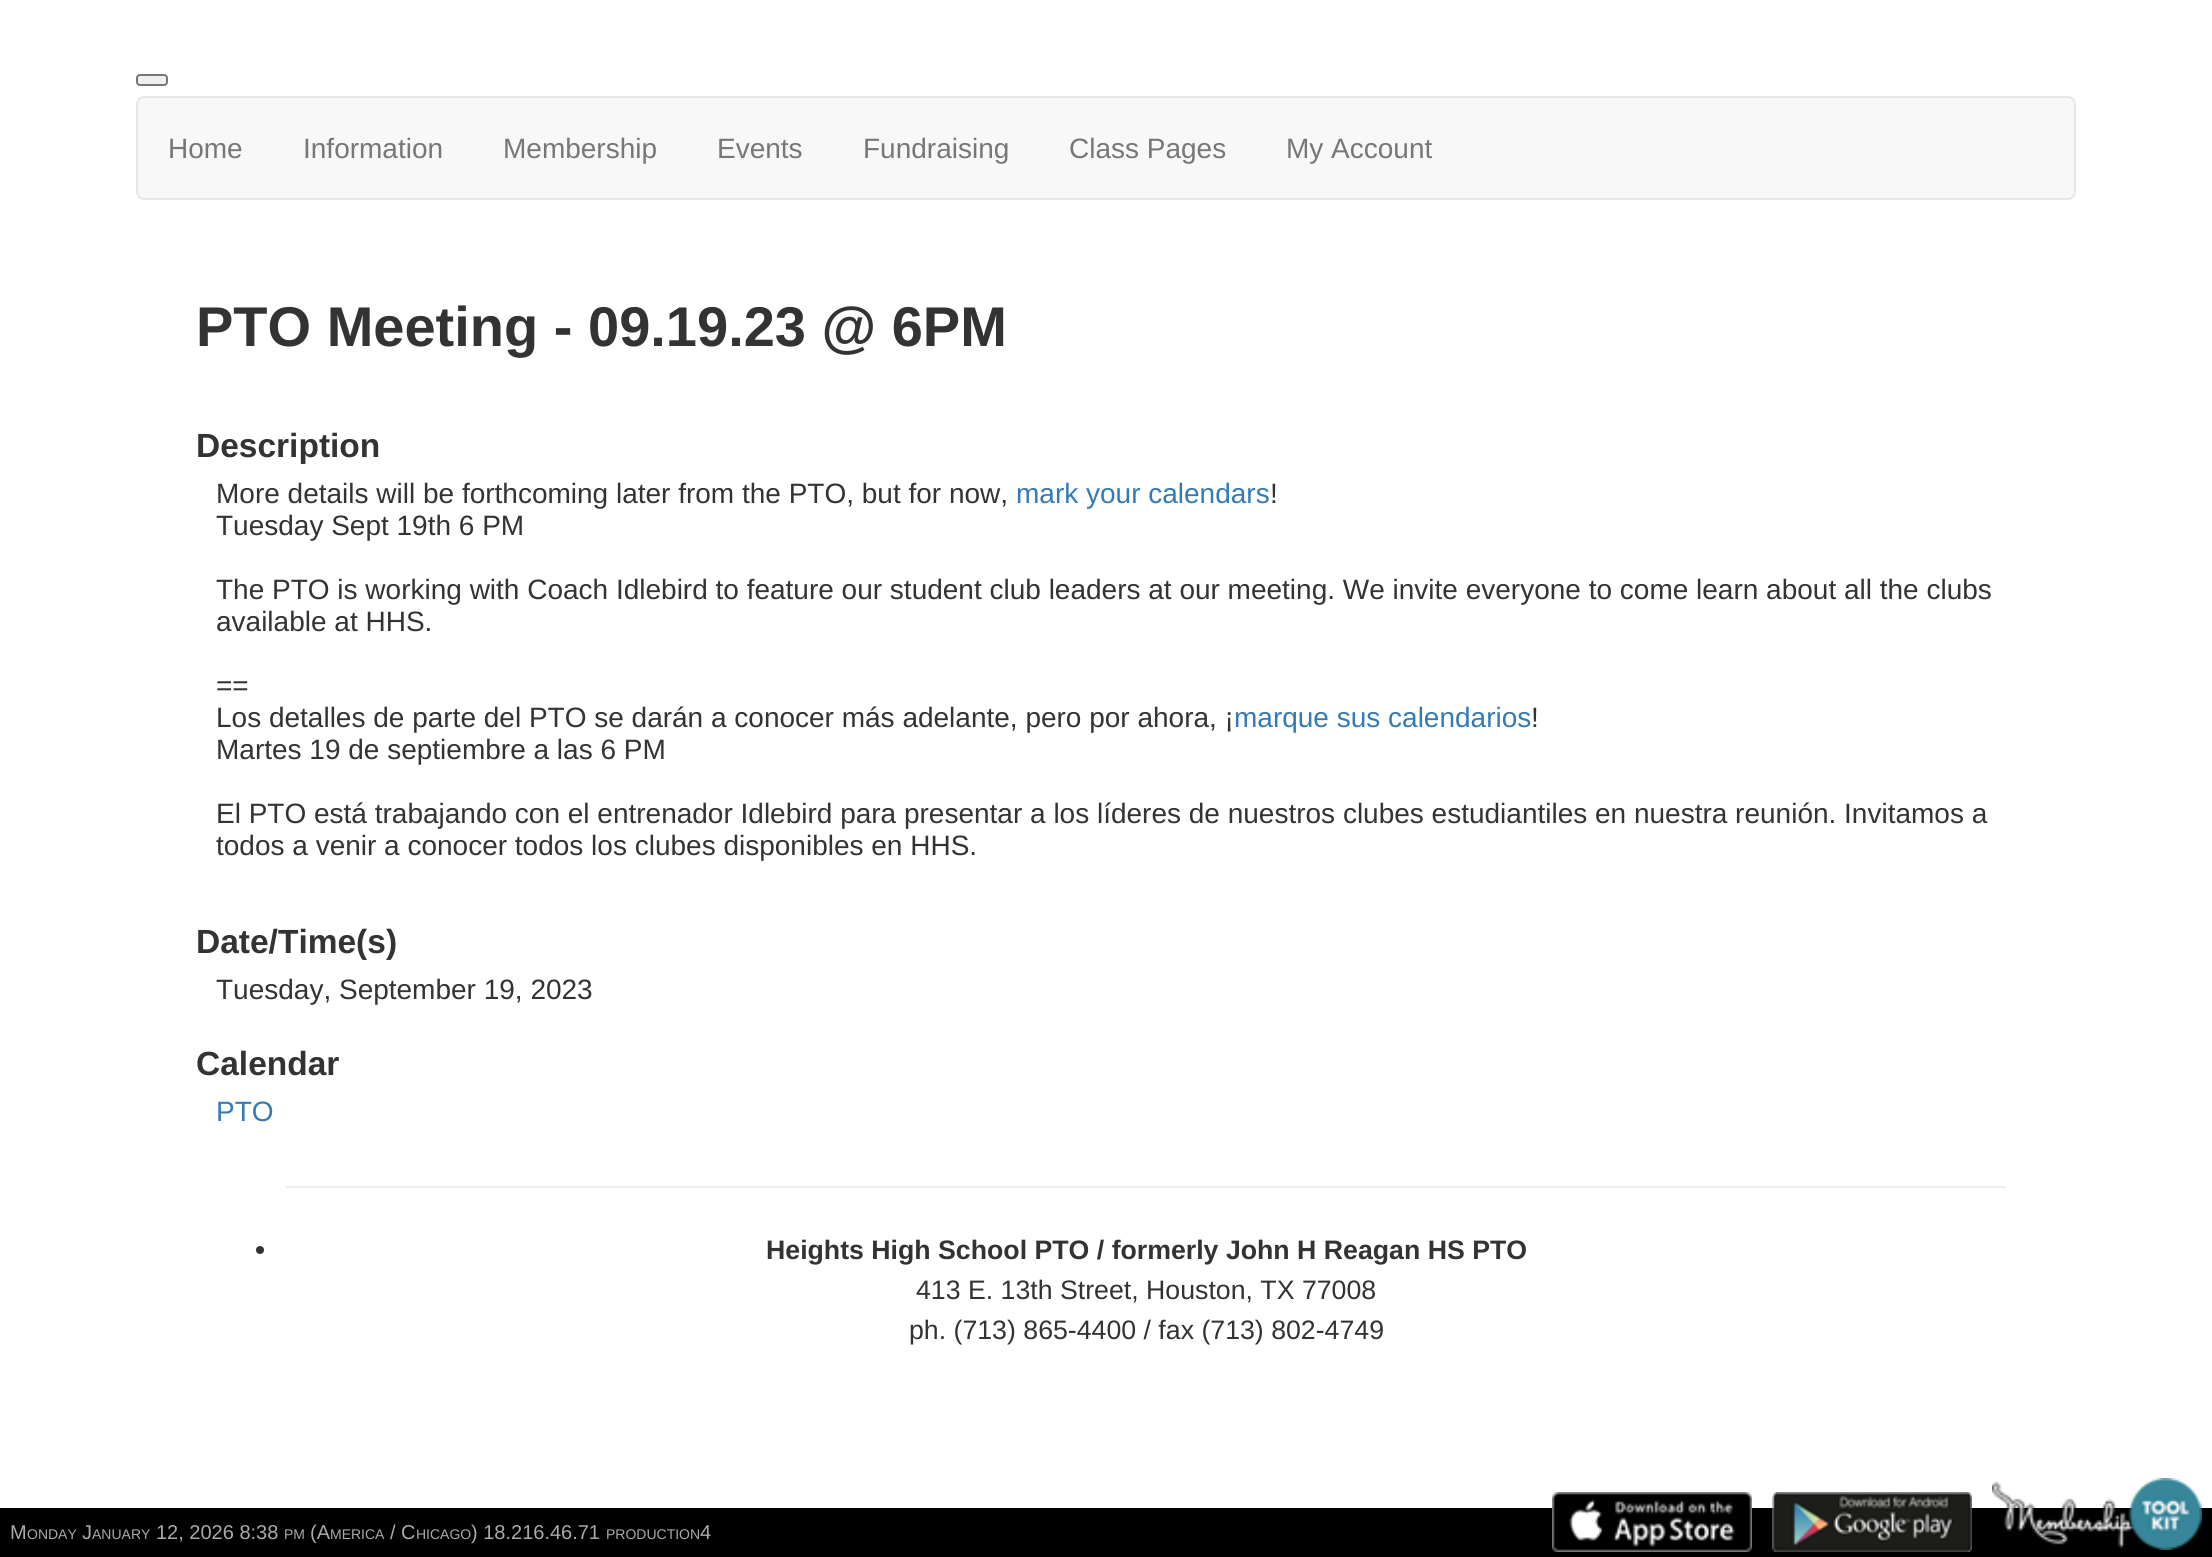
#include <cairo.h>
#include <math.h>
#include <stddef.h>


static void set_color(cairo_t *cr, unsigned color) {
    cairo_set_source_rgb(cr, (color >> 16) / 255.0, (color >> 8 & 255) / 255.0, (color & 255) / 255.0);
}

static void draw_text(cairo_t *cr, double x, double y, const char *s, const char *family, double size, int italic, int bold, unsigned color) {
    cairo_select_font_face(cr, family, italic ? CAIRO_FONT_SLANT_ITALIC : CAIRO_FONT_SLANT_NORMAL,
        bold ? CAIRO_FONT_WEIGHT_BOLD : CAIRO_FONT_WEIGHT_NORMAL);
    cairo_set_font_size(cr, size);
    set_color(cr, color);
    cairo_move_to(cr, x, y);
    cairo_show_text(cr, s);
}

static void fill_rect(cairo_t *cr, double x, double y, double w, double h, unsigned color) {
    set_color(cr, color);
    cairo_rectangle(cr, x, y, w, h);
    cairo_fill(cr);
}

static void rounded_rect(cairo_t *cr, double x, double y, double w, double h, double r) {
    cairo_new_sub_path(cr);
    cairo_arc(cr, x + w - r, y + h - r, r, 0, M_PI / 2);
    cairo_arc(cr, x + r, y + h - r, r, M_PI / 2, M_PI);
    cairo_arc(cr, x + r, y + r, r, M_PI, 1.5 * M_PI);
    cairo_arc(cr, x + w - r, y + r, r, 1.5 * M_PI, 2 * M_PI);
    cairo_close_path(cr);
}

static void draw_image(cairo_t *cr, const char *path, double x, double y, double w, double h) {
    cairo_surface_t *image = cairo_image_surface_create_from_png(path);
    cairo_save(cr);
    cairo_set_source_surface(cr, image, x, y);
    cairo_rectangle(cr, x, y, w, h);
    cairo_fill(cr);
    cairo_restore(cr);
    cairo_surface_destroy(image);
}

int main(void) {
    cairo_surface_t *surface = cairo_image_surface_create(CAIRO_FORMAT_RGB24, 2212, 1557);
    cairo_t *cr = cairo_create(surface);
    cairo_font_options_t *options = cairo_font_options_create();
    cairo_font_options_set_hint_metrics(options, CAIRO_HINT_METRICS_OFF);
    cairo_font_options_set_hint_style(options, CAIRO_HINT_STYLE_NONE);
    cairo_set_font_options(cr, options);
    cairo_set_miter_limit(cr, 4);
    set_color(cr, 0xFFFFFF);
    cairo_paint(cr);
    set_color(cr, 0xEFEFEF);
    rounded_rect(cr, 137, 75, 30, 10, 3);
    cairo_fill_preserve(cr);
    set_color(cr, 0x767676);
    cairo_stroke(cr);
    set_color(cr, 0xF8F8F8);
    rounded_rect(cr, 137, 97, 1938, 102, 7);
    cairo_fill_preserve(cr);
    set_color(cr, 0xE7E7E7);
    cairo_stroke(cr);
    draw_text(cr, 168, 158, "Home", "Liberation Sans", 28, 0, 0, 0x777777);
    draw_text(cr, 303, 158, "Information", "Liberation Sans", 28, 0, 0, 0x777777);
    draw_text(cr, 503, 158, "Membership", "Liberation Sans", 28, 0, 0, 0x777777);
    draw_text(cr, 717, 158, "Events", "Liberation Sans", 28, 0, 0, 0x777777);
    draw_text(cr, 863, 158, "Fundraising", "Liberation Sans", 28, 0, 0, 0x777777);
    draw_text(cr, 1069, 158, "Class Pages", "Liberation Sans", 28, 0, 0, 0x777777);
    draw_text(cr, 1286, 158, "My Account", "Liberation Sans", 28, 0, 0, 0x777777);
    draw_text(cr, 196, 346, "PTO Meeting - 09.19.23 @ 6PM", "Liberation Sans", 56, 0, 1, 0x333333);
    draw_text(cr, 196, 457, "Description", "Liberation Sans", 33.5, 0, 1, 0x333333);
    draw_text(cr, 216, 503, "More details will be forthcoming later from the PTO, but for now,", "Liberation Sans", 28, 0, 0, 0x333333);
    draw_text(cr, 1016, 503, "mark your calendars", "Liberation Sans", 28, 0, 0, 0x337AB7);
    draw_text(cr, 1270, 503, "!", "Liberation Sans", 28, 0, 0, 0x333333);
    draw_text(cr, 216, 535, "Tuesday Sept 19th 6 PM", "Liberation Sans", 28, 0, 0, 0x333333);
    draw_text(cr, 216, 599, "The PTO is working with Coach Idlebird to feature our student club leaders at our meeting. We invite everyone to come learn about all the clubs", "Liberation Sans", 28, 0, 0, 0x333333);
    draw_text(cr, 216, 631, "available at HHS.", "Liberation Sans", 28, 0, 0, 0x333333);
    draw_text(cr, 216, 695, "==", "Liberation Sans", 28, 0, 0, 0x333333);
    draw_text(cr, 216, 727, "Los detalles de parte del PTO se darán a conocer más adelante, pero por ahora, ¡", "Liberation Sans", 28, 0, 0, 0x333333);
    draw_text(cr, 1234, 727, "marque sus calendarios", "Liberation Sans", 28, 0, 0, 0x337AB7);
    draw_text(cr, 1531, 727, "!", "Liberation Sans", 28, 0, 0, 0x333333);
    draw_text(cr, 216, 759, "Martes 19 de septiembre a las 6 PM", "Liberation Sans", 28, 0, 0, 0x333333);
    draw_text(cr, 216, 823, "El PTO está trabajando con el entrenador Idlebird para presentar a los líderes de nuestros clubes estudiantiles en nuestra reunión. Invitamos a", "Liberation Sans", 28, 0, 0, 0x333333);
    draw_text(cr, 216, 855, "todos a venir a conocer todos los clubes disponibles en HHS.", "Liberation Sans", 28, 0, 0, 0x333333);
    draw_text(cr, 196, 953, "Date/Time(s)", "Liberation Sans", 33.5, 0, 1, 0x333333);
    draw_text(cr, 216, 999, "Tuesday, September 19, 2023", "Liberation Sans", 28, 0, 0, 0x333333);
    draw_text(cr, 196, 1075, "Calendar", "Liberation Sans", 33.5, 0, 1, 0x333333);
    draw_text(cr, 216, 1121, "PTO", "Liberation Sans", 28, 0, 0, 0x337AB7);
    fill_rect(cr, 286, 1186, 1720, 2, 0xEEEEEE);
    set_color(cr, 0x333333);
    cairo_new_path(cr);
    cairo_arc(cr, 260, 1250, 4, 0, 2 * M_PI);
    cairo_fill(cr);
    draw_text(cr, 766, 1259, "Heights High School PTO / formerly John H Reagan HS PTO", "Liberation Sans", 26.7, 0, 1, 0x333333);
    draw_text(cr, 916, 1299, "413 E. 13th Street, Houston, TX 77008", "Liberation Sans", 26.7, 0, 0, 0x333333);
    draw_text(cr, 909, 1339, "ph. (713) 865-4400 / fax (713) 802-4749", "Liberation Sans", 26.7, 0, 0, 0x333333);
    fill_rect(cr, 0, 1508, 2212, 49, 0x000000);
    draw_text(cr, 10, 1539, "M", "Liberation Sans", 20, 0, 0, 0xAAAAAA);
    draw_text(cr, 27, 1539, "ONDAY", "Liberation Sans", 14, 0, 0, 0xAAAAAA);
    draw_text(cr, 82, 1539, "J", "Liberation Sans", 20, 0, 0, 0xAAAAAA);
    draw_text(cr, 92, 1539, "ANUARY", "Liberation Sans", 14, 0, 0, 0xAAAAAA);
    draw_text(cr, 156, 1539, "12, 2026 8:38", "Liberation Sans", 20, 0, 0, 0xAAAAAA);
    draw_text(cr, 284, 1539, "PM", "Liberation Sans", 14, 0, 0, 0xAAAAAA);
    draw_text(cr, 310, 1539, "(A", "Liberation Sans", 20, 0, 0, 0xAAAAAA);
    draw_text(cr, 330, 1539, "MERICA", "Liberation Sans", 14, 0, 0, 0xAAAAAA);
    draw_text(cr, 390, 1539, "/ C", "Liberation Sans", 20, 0, 0, 0xAAAAAA);
    draw_text(cr, 416, 1539, "HICAGO", "Liberation Sans", 14, 0, 0, 0xAAAAAA);
    draw_text(cr, 471, 1539, ") 18.216.46.71", "Liberation Sans", 20, 0, 0, 0xAAAAAA);
    draw_text(cr, 606, 1539, "PRODUCTION", "Liberation Sans", 14, 0, 0, 0xAAAAAA);
    draw_text(cr, 700, 1539, "4", "Liberation Sans", 20, 0, 0, 0xAAAAAA);
    draw_image(cr, "assets/img1.png", 1552, 1492, 200, 60);
    draw_image(cr, "assets/img2.png", 1772, 1492, 200, 60);
    draw_image(cr, "assets/img3.png", 1992, 1478, 210, 72);
    cairo_surface_write_to_png(surface, "output.png");
    cairo_font_options_destroy(options);
    cairo_destroy(cr);
    cairo_surface_destroy(surface);
    return 0;
}
